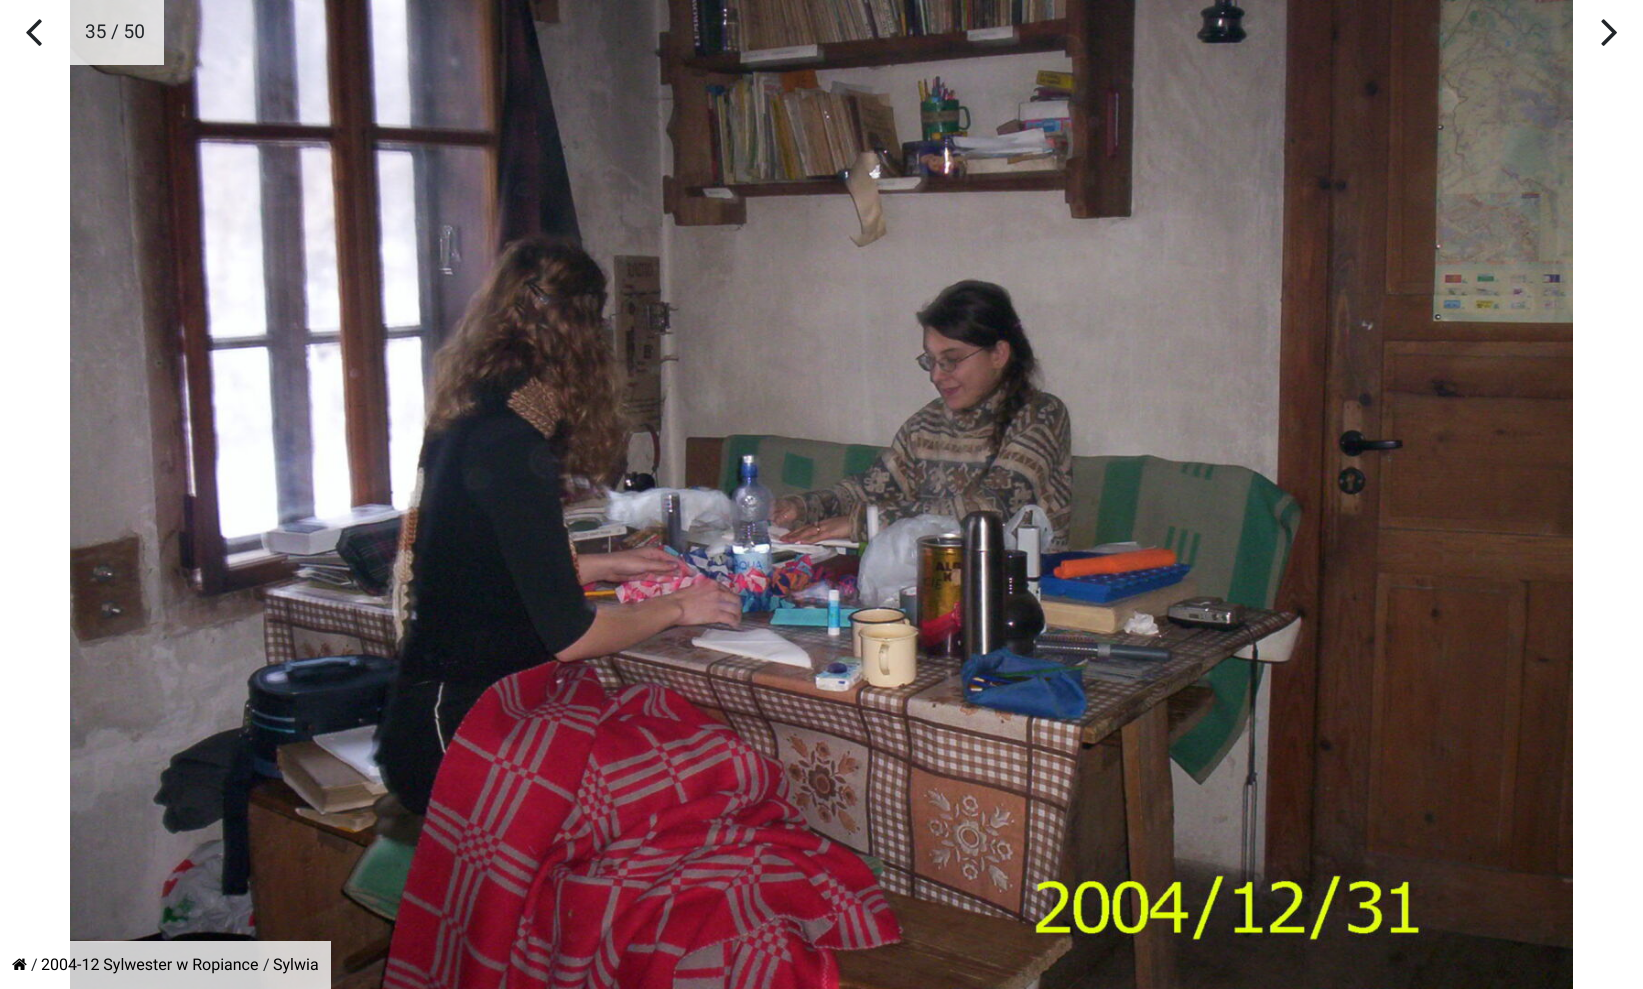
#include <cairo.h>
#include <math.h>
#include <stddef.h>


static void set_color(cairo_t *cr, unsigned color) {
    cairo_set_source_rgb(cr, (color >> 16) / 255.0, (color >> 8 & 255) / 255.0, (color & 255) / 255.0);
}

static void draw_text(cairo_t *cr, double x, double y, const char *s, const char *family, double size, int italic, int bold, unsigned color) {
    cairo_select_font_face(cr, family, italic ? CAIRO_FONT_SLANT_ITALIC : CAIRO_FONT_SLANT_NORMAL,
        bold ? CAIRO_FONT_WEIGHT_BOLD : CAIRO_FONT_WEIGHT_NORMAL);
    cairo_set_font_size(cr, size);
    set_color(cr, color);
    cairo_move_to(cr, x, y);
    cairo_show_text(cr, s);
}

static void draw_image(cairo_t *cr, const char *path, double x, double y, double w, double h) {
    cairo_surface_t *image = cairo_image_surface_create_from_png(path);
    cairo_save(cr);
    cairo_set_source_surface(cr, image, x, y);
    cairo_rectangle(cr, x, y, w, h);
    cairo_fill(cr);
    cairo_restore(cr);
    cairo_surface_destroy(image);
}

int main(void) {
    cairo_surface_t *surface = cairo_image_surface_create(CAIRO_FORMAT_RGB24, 1643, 989);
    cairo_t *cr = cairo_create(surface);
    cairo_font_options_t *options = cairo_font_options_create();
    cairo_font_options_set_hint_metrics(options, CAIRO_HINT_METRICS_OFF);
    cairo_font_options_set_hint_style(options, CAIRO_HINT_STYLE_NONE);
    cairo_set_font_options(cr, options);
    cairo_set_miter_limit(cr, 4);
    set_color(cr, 0xFFFFFF);
    cairo_paint(cr);
    draw_image(cr, "assets/img1.png", 26, 19, 16, 27);
    draw_image(cr, "assets/img2.png", 70, 0, 1503, 989);
    draw_image(cr, "assets/img3.png", 1601, 19, 16, 27);
    cairo_set_source_rgba(cr, 1, 1, 1, 0.8);
    cairo_rectangle(cr, 70, 0, 94, 65);
    cairo_fill(cr);
    draw_text(cr, 85, 38, "35 / 50", "Roboto", 19, 0, 0, 0x212529);
    cairo_set_source_rgba(cr, 1, 1, 1, 0.8);
    cairo_rectangle(cr, 70, 941, 261, 48);
    cairo_fill(cr);
    draw_image(cr, "assets/img4.png", 12, 958, 15, 12);
    draw_text(cr, 31, 970, "/", "Roboto", 16, 0, 0, 0x212529);
    draw_text(cr, 41, 970, "2004-12 Sylwester w Ropiance", "Roboto", 16, 0, 0, 0x000000);
    draw_text(cr, 263, 970, "/", "Roboto", 16, 0, 0, 0x212529);
    draw_text(cr, 273, 970, "Sylwia", "Roboto", 16, 0, 0, 0x000000);
    cairo_surface_write_to_png(surface, "output.png");
    cairo_font_options_destroy(options);
    cairo_destroy(cr);
    cairo_surface_destroy(surface);
    return 0;
}
